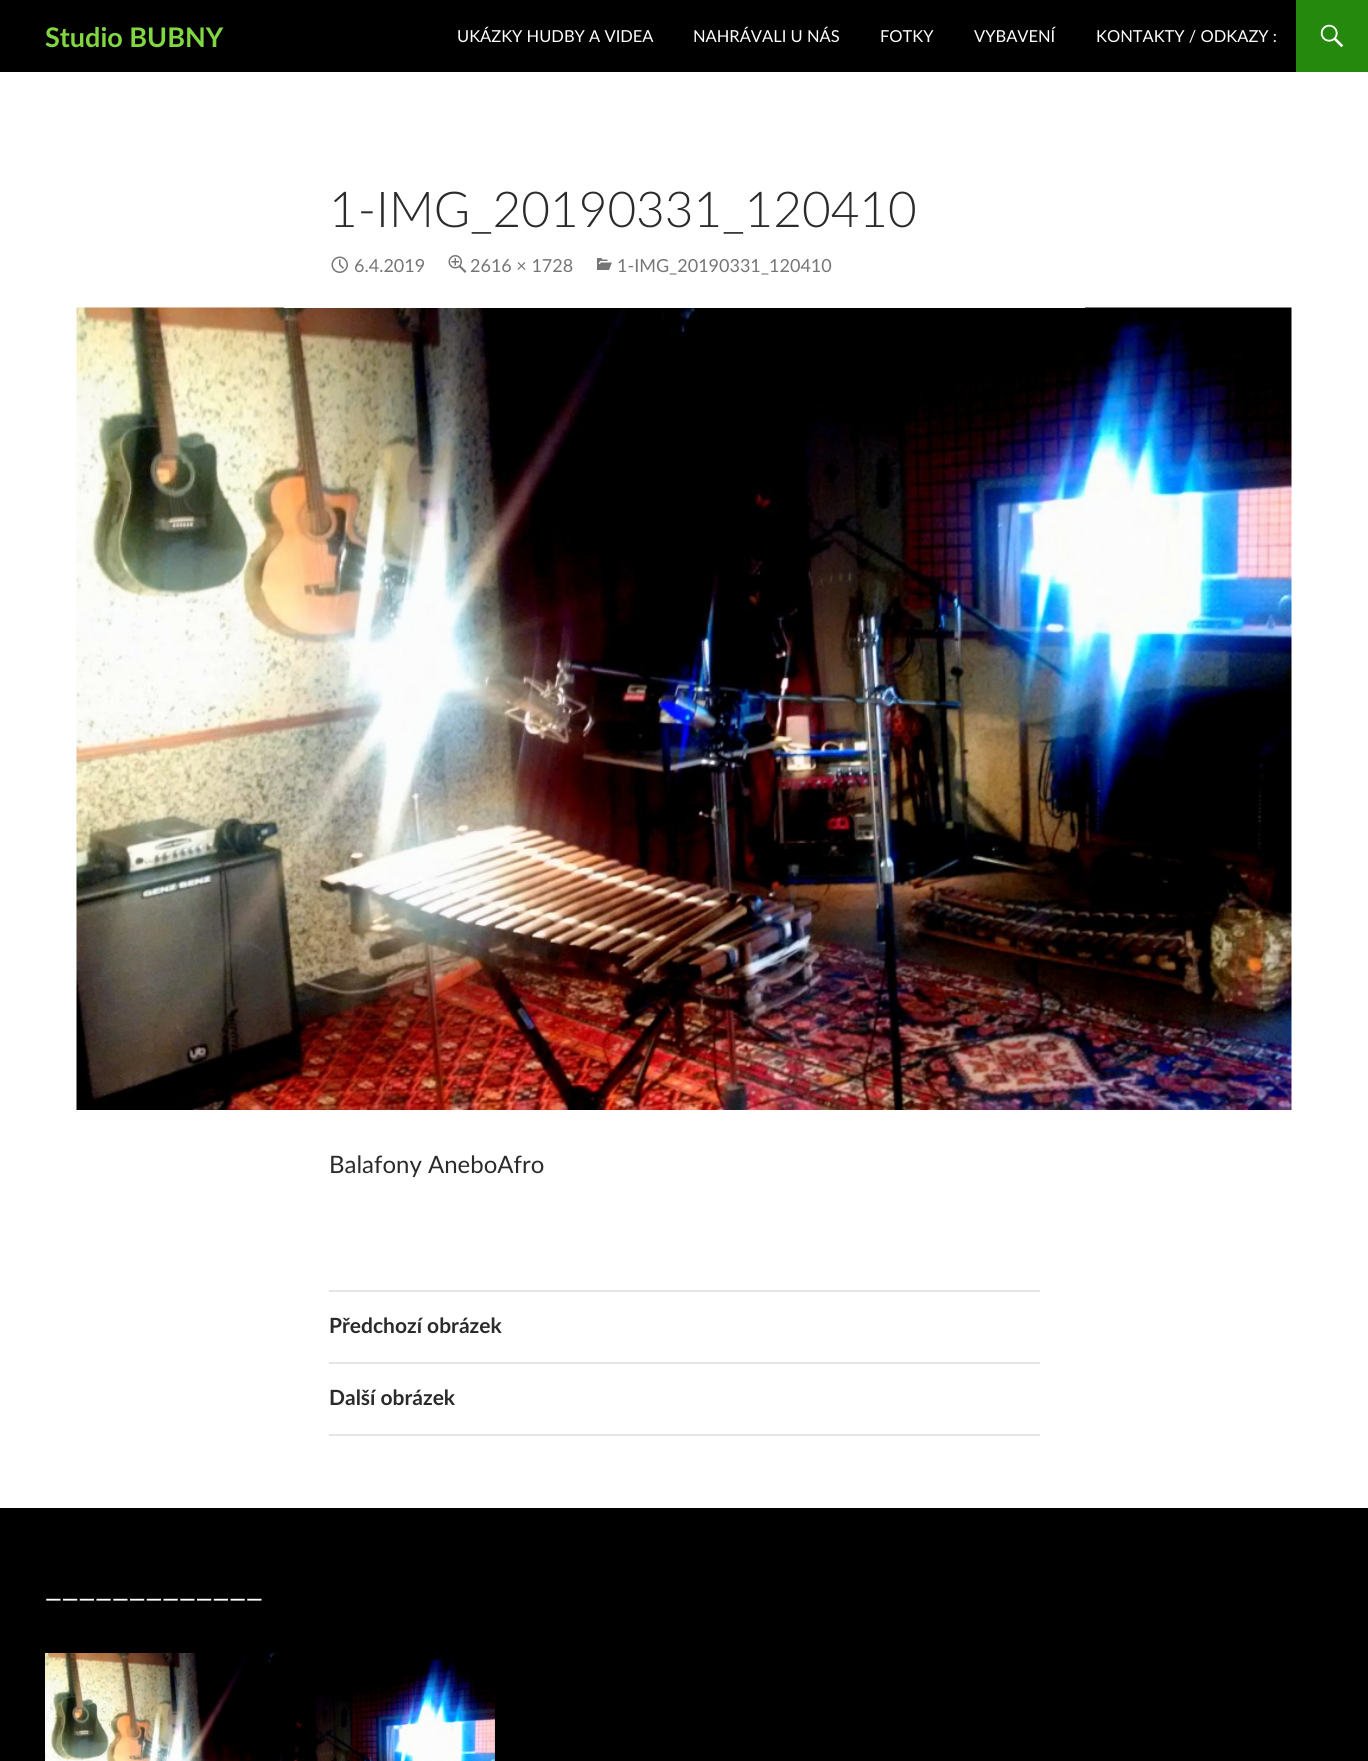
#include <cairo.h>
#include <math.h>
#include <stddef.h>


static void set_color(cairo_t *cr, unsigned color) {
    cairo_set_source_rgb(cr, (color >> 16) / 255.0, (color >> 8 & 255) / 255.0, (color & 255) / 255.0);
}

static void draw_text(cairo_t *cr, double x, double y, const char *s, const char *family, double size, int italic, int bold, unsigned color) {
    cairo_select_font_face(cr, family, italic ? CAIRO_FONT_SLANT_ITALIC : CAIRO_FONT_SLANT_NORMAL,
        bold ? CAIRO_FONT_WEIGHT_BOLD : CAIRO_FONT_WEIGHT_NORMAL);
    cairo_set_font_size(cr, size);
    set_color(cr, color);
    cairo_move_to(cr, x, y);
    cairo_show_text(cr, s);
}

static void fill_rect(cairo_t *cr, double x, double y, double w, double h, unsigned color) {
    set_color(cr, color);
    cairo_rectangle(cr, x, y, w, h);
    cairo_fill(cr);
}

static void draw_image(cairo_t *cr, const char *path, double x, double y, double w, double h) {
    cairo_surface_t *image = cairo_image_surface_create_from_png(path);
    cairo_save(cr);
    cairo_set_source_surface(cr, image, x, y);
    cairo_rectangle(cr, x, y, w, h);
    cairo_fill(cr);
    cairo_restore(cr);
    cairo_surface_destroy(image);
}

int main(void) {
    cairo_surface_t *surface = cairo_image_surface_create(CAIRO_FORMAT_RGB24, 1368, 1761);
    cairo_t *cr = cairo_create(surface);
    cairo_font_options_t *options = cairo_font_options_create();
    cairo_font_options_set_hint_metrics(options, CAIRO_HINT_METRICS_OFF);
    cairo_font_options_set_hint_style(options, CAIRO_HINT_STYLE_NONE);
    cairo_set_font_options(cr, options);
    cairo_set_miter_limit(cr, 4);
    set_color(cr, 0xFFFFFF);
    cairo_paint(cr);
    fill_rect(cr, 0, 0, 1296, 72, 0x000000);
    draw_text(cr, 45, 47, "Studio BUBNY", "Lato", 27, 0, 1, 0x81D742);
    draw_text(cr, 457, 42, "UKÁZKY HUDBY A VIDEA", "Lato", 16.5, 0, 0, 0xFFFFFF);
    draw_text(cr, 693, 42, "NAHRÁVALI U NÁS", "Lato", 16.5, 0, 0, 0xFFFFFF);
    draw_text(cr, 880, 42, "FOTKY", "Lato", 16.5, 0, 0, 0xFFFFFF);
    draw_text(cr, 974, 42, "VYBAVENÍ", "Lato", 16.5, 0, 0, 0xFFFFFF);
    draw_text(cr, 1096, 42, "KONTAKTY / ODKAZY :", "Lato", 16.5, 0, 0, 0xFFFFFF);
    fill_rect(cr, 1296, 0, 72, 72, 0x24890D);
    draw_image(cr, "assets/img1.png", 1320, 24, 24, 24);
    draw_image(cr, "assets/img5.png", 76, 307, 1216, 803);
    fill_rect(cr, 284, 307, 801, 1, 0xFFFFFF);
    draw_text(cr, 329, 227, "1-IMG_20190331_120410", "Lato Light", 49.5, 0, 0, 0x2B2B2B);
    draw_image(cr, "assets/img2.png", 331, 256, 17, 17);
    draw_text(cr, 354, 272, "6.4.2019", "Lato", 18, 0, 0, 0x767676);
    draw_image(cr, "assets/img3.png", 448, 255, 19, 18);
    draw_text(cr, 470, 272, "2616 × 1728", "Lato", 18, 0, 0, 0x767676);
    draw_image(cr, "assets/img4.png", 597, 258, 15, 12);
    draw_text(cr, 617, 272, "1-IMG_20190331_120410", "Lato", 18, 0, 0, 0x767676);
    draw_text(cr, 329, 1173, "Balafony AneboAfro", "Lato", 24, 0, 0, 0x2B2B2B);
    fill_rect(cr, 329, 1290, 711, 2, 0xE6E6E6);
    fill_rect(cr, 329, 1362, 711, 2, 0xE6E6E6);
    draw_text(cr, 329, 1333, "Předchozí obrázek", "Lato", 21, 0, 1, 0x2B2B2B);
    fill_rect(cr, 329, 1434, 711, 2, 0xE6E6E6);
    draw_text(cr, 329, 1405, "Další obrázek", "Lato", 21, 0, 1, 0x2B2B2B);
    fill_rect(cr, 0, 1508, 1368, 253, 0x000000);
    draw_text(cr, 45, 1606, "—————————————", "Lato", 21, 0, 1, 0xFFFFFF);
    draw_image(cr, "assets/img6.png", 45, 1653, 450, 108);
    cairo_surface_write_to_png(surface, "output.png");
    cairo_font_options_destroy(options);
    cairo_destroy(cr);
    cairo_surface_destroy(surface);
    return 0;
}
